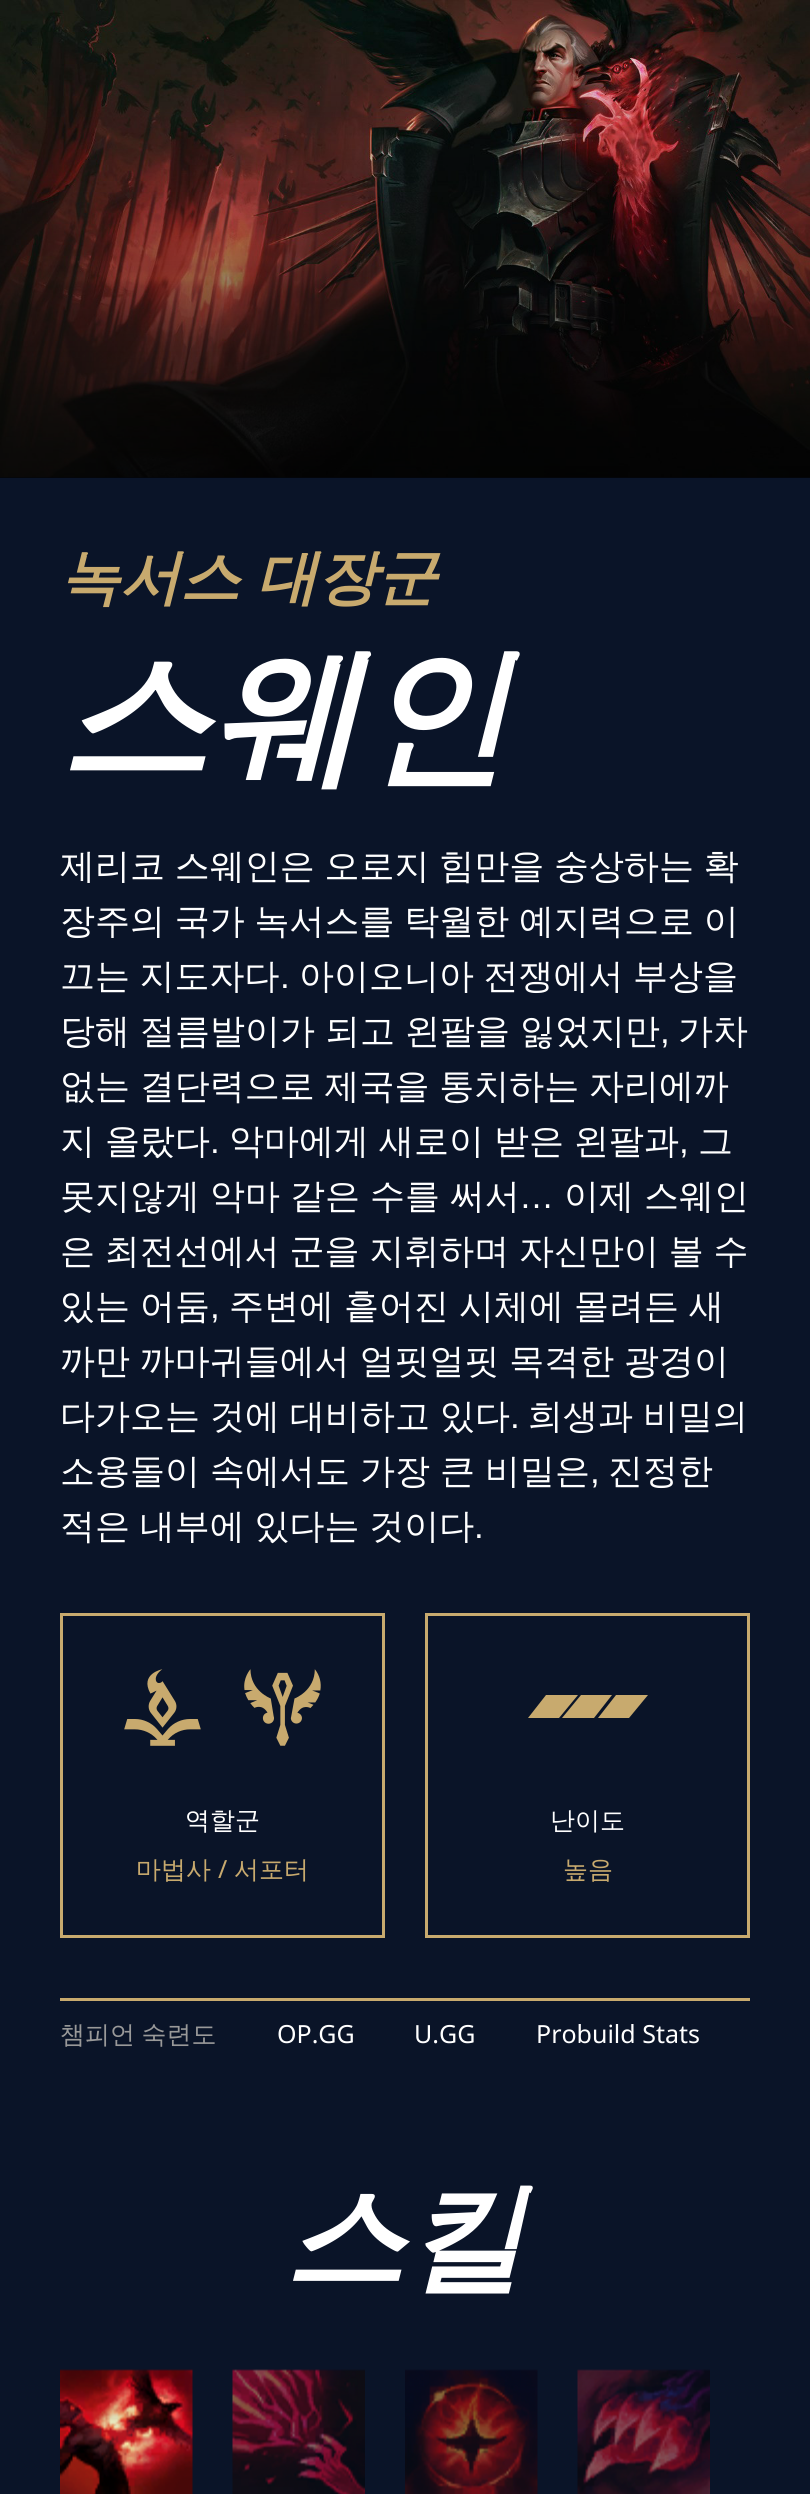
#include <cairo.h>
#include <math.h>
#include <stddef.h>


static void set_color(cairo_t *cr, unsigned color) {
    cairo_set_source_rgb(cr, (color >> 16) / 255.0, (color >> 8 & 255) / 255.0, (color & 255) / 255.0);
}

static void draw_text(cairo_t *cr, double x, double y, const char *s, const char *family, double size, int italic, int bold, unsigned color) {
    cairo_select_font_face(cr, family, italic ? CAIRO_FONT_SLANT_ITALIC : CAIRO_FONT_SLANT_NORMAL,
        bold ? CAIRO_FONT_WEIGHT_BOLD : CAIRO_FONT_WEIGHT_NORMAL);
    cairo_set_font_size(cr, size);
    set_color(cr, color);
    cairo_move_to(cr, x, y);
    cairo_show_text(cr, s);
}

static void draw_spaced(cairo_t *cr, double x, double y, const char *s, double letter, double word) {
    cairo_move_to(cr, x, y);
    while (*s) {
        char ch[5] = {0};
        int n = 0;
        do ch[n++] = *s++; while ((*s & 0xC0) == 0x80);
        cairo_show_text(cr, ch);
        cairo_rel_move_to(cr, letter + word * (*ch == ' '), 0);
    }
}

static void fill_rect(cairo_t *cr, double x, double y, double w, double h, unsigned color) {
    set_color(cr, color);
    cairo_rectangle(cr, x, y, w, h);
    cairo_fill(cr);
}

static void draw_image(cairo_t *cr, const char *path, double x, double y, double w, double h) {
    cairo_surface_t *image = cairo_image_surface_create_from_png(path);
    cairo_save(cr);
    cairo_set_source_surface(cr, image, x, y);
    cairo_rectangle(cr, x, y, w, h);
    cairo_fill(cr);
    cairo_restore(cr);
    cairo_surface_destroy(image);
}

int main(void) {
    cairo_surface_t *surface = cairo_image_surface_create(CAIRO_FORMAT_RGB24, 810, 2494);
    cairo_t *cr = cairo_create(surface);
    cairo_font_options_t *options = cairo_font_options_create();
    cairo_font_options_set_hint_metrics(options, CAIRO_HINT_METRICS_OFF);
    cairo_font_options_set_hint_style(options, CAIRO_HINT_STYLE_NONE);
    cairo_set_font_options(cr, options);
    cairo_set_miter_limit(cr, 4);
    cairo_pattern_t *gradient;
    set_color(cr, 0x0A1428);
    cairo_paint(cr);
    draw_image(cr, "assets/img1.png", 0, 0, 810, 478);
    gradient = cairo_pattern_create_linear(405, 478, 405, 0);
    cairo_pattern_add_color_stop_rgba(gradient, 0, 0, 0, 0, 0.7);
    cairo_pattern_add_color_stop_rgba(gradient, 0.93, 0, 0, 0, 0);
    cairo_set_source(cr, gradient);
    cairo_pattern_destroy(gradient);
    cairo_rectangle(cr, 0, 47, 810, 431);
    cairo_fill(cr);
    cairo_select_font_face(cr, "WenQuanYi Zen Hei", CAIRO_FONT_SLANT_ITALIC, CAIRO_FONT_WEIGHT_BOLD);
    cairo_set_font_size(cr, 60);
    set_color(cr, 0xC8AA6E);
    draw_spaced(cr, 60, 598, "녹서스 대장군", 0, -1);
    draw_text(cr, 60, 768, "스웨인", "WenQuanYi Zen Hei", 150, 1, 1, 0xFFFFFF);
    cairo_select_font_face(cr, "WenQuanYi Zen Hei Medium", CAIRO_FONT_SLANT_NORMAL, CAIRO_FONT_WEIGHT_NORMAL);
    cairo_set_font_size(cr, 35);
    draw_spaced(cr, 60, 878, "제리코 스웨인은 오로지 힘만을 숭상하는 확", 0, -0.75);
    draw_spaced(cr, 60, 933, "장주의 국가 녹서스를 탁월한 예지력으로 이", 0, -0.75);
    draw_spaced(cr, 60, 988, "끄는 지도자다", 0, -1);
    draw_text(cr, 280, 988, ".", "Liberation Sans", 35, 0, 0, 0xFFFFFF);
    cairo_select_font_face(cr, "WenQuanYi Zen Hei Medium", CAIRO_FONT_SLANT_NORMAL, CAIRO_FONT_WEIGHT_NORMAL);
    draw_spaced(cr, 299, 988, "아이오니아 전쟁에서 부상을", 0, -1);
    draw_spaced(cr, 60, 1043, "당해 절름발이가 되고 왼팔을 잃었지만", 0, -0.5);
    draw_text(cr, 660, 1043, ",", "Liberation Sans", 35, 0, 0, 0xFFFFFF);
    draw_text(cr, 678, 1043, "가차", "WenQuanYi Zen Hei Medium", 35, 0, 0, 0xFFFFFF);
    draw_spaced(cr, 60, 1098, "없는 결단력으로 제국을 통치하는 자리에까", 0, -0.75);
    draw_spaced(cr, 60, 1153, "지 올랐다", 0, -0.5);
    draw_text(cr, 210, 1153, ".", "Liberation Sans", 35, 0, 0, 0xFFFFFF);
    cairo_select_font_face(cr, "WenQuanYi Zen Hei Medium", CAIRO_FONT_SLANT_NORMAL, CAIRO_FONT_WEIGHT_NORMAL);
    draw_spaced(cr, 229, 1153, "악마에게 새로이 받은 왼팔과", 0, -0.5);
    draw_text(cr, 679, 1153, ",", "Liberation Sans", 35, 0, 0, 0xFFFFFF);
    draw_text(cr, 698, 1153, "그", "WenQuanYi Zen Hei Medium", 35, 0, 0, 0xFFFFFF);
    draw_spaced(cr, 60, 1208, "못지않게 악마 같은 수를 써서", 0, -0.5);
    draw_text(cr, 519, 1208, "…", "Liberation Sans", 35, 0, 0, 0xFFFFFF);
    cairo_select_font_face(cr, "WenQuanYi Zen Hei Medium", CAIRO_FONT_SLANT_NORMAL, CAIRO_FONT_WEIGHT_NORMAL);
    draw_spaced(cr, 564, 1208, "이제 스웨인", 0, -0.5);
    draw_spaced(cr, 60, 1263, "은 최전선에서 군을 지휘하며 자신만이 볼 수", 0, -0.75);
    draw_spaced(cr, 60, 1318, "있는 어둠", 0, -0.5);
    draw_text(cr, 210, 1318, ",", "Liberation Sans", 35, 0, 0, 0xFFFFFF);
    cairo_select_font_face(cr, "WenQuanYi Zen Hei Medium", CAIRO_FONT_SLANT_NORMAL, CAIRO_FONT_WEIGHT_NORMAL);
    draw_spaced(cr, 229, 1318, "주변에 흩어진 시체에 몰려든 새", 0, -0.5);
    draw_spaced(cr, 60, 1373, "까만 까마귀들에서 얼핏얼핏 목격한 광경이", 0, -0.75);
    draw_spaced(cr, 60, 1428, "다가오는 것에 대비하고 있다", 0, -0.5);
    draw_text(cr, 510, 1428, ".", "Liberation Sans", 35, 0, 0, 0xFFFFFF);
    cairo_select_font_face(cr, "WenQuanYi Zen Hei Medium", CAIRO_FONT_SLANT_NORMAL, CAIRO_FONT_WEIGHT_NORMAL);
    draw_spaced(cr, 528, 1428, "희생과 비밀의", 0, -0.5);
    draw_spaced(cr, 60, 1483, "소용돌이 속에서도 가장 큰 비밀은", 0, -0.5);
    draw_text(cr, 590, 1483, ",", "Liberation Sans", 35, 0, 0, 0xFFFFFF);
    draw_text(cr, 608, 1483, "진정한", "WenQuanYi Zen Hei Medium", 35, 0, 0, 0xFFFFFF);
    draw_spaced(cr, 60, 1538, "적은 내부에 있다는 것이다", 0, -0.75);
    draw_text(cr, 474, 1538, ".", "Liberation Sans", 35, 0, 0, 0xFFFFFF);
    cairo_rectangle(cr, 61.5, 1614.5, 322, 322);
    set_color(cr, 0xC8AA6E);
    cairo_set_line_width(cr, 3);
    cairo_stroke(cr);
    draw_image(cr, "assets/img2.png", 124, 1669, 77, 77);
    draw_image(cr, "assets/img3.png", 244, 1669, 77, 77);
    draw_text(cr, 185, 1829, "역할군", "WenQuanYi Zen Hei Medium", 25, 0, 0, 0xFFFFFF);
    draw_text(cr, 136, 1878, "마법사", "WenQuanYi Zen Hei Medium", 25, 0, 0, 0xC8AA6E);
    draw_text(cr, 218, 1878, "/", "Noto Sans", 25, 0, 0, 0xC8AA6E);
    draw_text(cr, 234, 1878, "서포터", "WenQuanYi Zen Hei Medium", 25, 0, 0, 0xC8AA6E);
    cairo_rectangle(cr, 426.5, 1614.5, 322, 322);
    cairo_stroke(cr);
    cairo_new_path(cr);
    cairo_move_to(cr, 559, 1718);
    cairo_line_to(cr, 528, 1718);
    cairo_line_to(cr, 546, 1695);
    cairo_line_to(cr, 578, 1695);
    cairo_close_path(cr);
    cairo_fill(cr);
    cairo_new_path(cr);
    cairo_move_to(cr, 594, 1718);
    cairo_line_to(cr, 562, 1718);
    cairo_line_to(cr, 581, 1695);
    cairo_line_to(cr, 612, 1695);
    cairo_close_path(cr);
    cairo_fill(cr);
    cairo_new_path(cr);
    cairo_move_to(cr, 629, 1718);
    cairo_line_to(cr, 598, 1718);
    cairo_line_to(cr, 616, 1695);
    cairo_line_to(cr, 648, 1695);
    cairo_close_path(cr);
    cairo_fill(cr);
    draw_text(cr, 550, 1829, "난이도", "WenQuanYi Zen Hei Medium", 25, 0, 0, 0xFFFFFF);
    draw_text(cr, 563, 1878, "높음", "WenQuanYi Zen Hei Medium", 25, 0, 0, 0xC8AA6E);
    fill_rect(cr, 60, 1998, 690, 3, 0xC8AA6E);
    set_color(cr, 0x999999);
    draw_spaced(cr, 60, 2043, "챔피언 숙련도", 0, -1);
    draw_text(cr, 277, 2043, "OP.GG", "Noto Sans", 25, 0, 0, 0xFFFFFF);
    draw_text(cr, 414, 2043, "U.GG", "Noto Sans", 25, 0, 0, 0xFFFFFF);
    draw_text(cr, 536, 2043, "Probuild Stats", "Noto Sans", 25, 0, 0, 0xFFFFFF);
    draw_text(cr, 285, 2279, "스킬", "WenQuanYi Zen Hei", 120, 1, 1, 0xFFFFFF);
    draw_image(cr, "assets/img4.png", 60, 2369, 133, 125);
    draw_image(cr, "assets/img5.png", 232, 2369, 133, 125);
    draw_image(cr, "assets/img6.png", 405, 2369, 133, 125);
    draw_image(cr, "assets/img7.png", 577, 2369, 133, 125);
    cairo_surface_write_to_png(surface, "output.png");
    cairo_font_options_destroy(options);
    cairo_destroy(cr);
    cairo_surface_destroy(surface);
    return 0;
}
